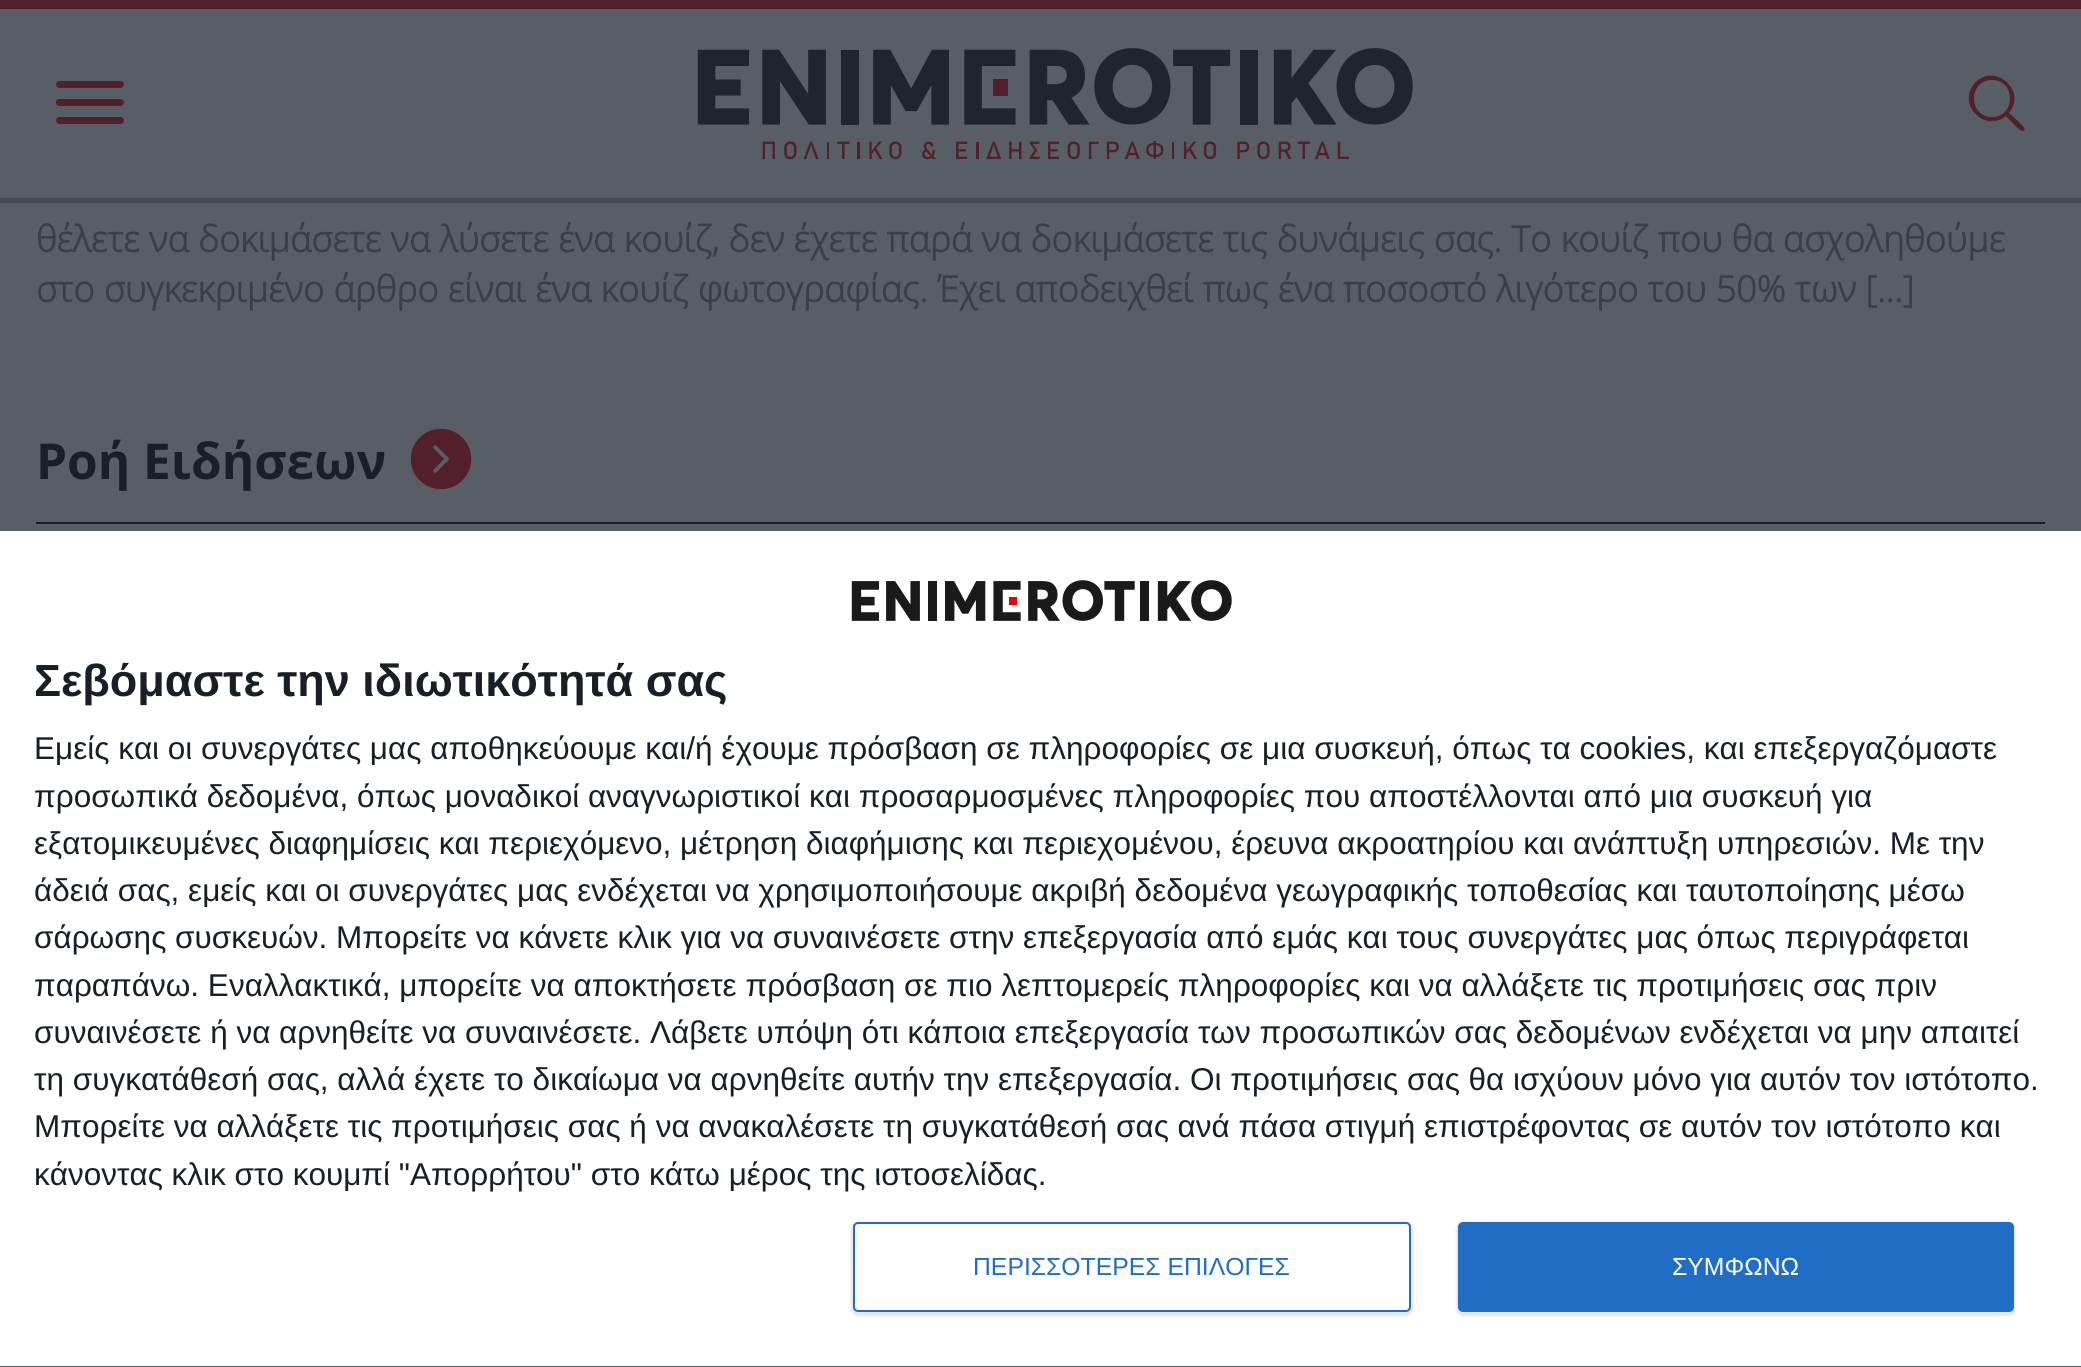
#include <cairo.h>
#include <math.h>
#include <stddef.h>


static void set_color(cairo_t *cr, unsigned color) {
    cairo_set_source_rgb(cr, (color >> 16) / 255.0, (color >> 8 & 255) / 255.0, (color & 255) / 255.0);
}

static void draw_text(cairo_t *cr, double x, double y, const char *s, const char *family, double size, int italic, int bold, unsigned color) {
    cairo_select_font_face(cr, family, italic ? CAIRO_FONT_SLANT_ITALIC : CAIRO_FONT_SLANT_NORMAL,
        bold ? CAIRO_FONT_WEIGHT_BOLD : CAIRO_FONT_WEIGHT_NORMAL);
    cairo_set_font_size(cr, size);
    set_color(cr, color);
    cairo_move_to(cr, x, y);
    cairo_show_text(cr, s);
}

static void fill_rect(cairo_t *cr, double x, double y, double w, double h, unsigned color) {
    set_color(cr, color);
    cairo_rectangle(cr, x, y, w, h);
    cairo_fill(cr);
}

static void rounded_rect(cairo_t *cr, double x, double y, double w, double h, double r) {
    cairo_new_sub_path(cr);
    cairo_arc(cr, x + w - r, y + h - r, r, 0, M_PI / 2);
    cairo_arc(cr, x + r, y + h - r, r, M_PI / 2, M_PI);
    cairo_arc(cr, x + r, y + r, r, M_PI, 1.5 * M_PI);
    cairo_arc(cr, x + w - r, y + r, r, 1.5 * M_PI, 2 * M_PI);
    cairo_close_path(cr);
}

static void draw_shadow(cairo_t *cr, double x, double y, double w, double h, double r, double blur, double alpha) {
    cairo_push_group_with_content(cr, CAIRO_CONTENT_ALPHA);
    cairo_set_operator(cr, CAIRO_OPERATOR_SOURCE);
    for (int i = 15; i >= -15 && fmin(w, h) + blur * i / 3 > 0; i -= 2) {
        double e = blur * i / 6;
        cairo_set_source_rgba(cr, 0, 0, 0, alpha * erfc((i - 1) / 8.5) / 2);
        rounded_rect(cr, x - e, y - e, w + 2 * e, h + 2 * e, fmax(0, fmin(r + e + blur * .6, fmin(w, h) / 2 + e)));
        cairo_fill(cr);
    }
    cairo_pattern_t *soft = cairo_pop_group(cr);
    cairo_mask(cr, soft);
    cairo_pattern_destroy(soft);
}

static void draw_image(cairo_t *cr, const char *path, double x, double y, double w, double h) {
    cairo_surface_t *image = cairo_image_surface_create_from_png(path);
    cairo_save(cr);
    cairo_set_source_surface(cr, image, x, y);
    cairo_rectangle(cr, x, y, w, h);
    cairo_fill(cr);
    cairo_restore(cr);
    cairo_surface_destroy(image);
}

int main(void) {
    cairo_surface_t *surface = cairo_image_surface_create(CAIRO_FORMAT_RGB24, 2081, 1367);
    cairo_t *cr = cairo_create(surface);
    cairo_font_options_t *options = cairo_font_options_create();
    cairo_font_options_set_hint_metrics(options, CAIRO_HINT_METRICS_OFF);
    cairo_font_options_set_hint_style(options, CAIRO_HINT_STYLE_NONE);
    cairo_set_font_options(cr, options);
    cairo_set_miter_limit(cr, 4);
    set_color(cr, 0x585E66);
    cairo_paint(cr);
    fill_rect(cr, 0, 0, 2081, 9, 0x521F2A);
    fill_rect(cr, 0, 198, 2081, 5, 0x444A52);
    set_color(cr, 0x521F2A);
    rounded_rect(cr, 56, 81, 68, 7, 3.5);
    cairo_fill(cr);
    rounded_rect(cr, 56, 99, 68, 7, 3.5);
    cairo_fill(cr);
    rounded_rect(cr, 56, 117, 68, 7, 3.5);
    cairo_fill(cr);
    draw_image(cr, "assets/img1.png", 697, 48, 716, 77);
    draw_image(cr, "assets/img2.png", 762, 141, 587, 19);
    cairo_new_path(cr);
    cairo_move_to(cr, 2009, 113);
    cairo_curve_to(cr, 2028, 90, 1993, 61, 1974, 84);
    cairo_curve_to(cr, 1957, 105, 1985, 133, 2006, 116);
    cairo_curve_to(cr, 2009, 119, 2020, 132, 2023, 131);
    cairo_curve_to(cr, 2028, 129, 2019, 123, 2019, 122);
    cairo_close_path(cr);
    cairo_move_to(cr, 1992, 117);
    cairo_curve_to(cr, 1968, 117, 1968, 80, 1992, 80);
    cairo_curve_to(cr, 2016, 80, 2016, 117, 1992, 117);
    cairo_close_path(cr);
    cairo_fill(cr);
    draw_text(cr, 36, 252, "θέλετε να δοκιμάσετε να λύσετε ένα κουίζ, δεν έχετε παρά να δοκιμάσετε τις δυνάμεις σας. Το κουίζ που θα ασχοληθούμε", "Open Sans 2", 36, 0, 1, 0x393F47);
    draw_text(cr, 36, 302, "στο συγκεκριμένο άρθρο είναι ένα κουίζ φωτογραφίας. Έχει αποδειχθεί πως ένα ποσοστό λιγότερο του 50% των […]", "Open Sans 2", 36, 0, 1, 0x393F47);
    draw_text(cr, 36, 479, "Ροή Ειδήσεων", "Open Sans", 49.5, 0, 1, 0x191F27);
    draw_image(cr, "assets/img3.png", 410, 428, 62, 62);
    fill_rect(cr, 36, 522, 2009, 2, 0x191F27);
    fill_rect(cr, 0, 531, 2081, 835, 0xFFFFFF);
    draw_image(cr, "assets/img4.png", 851, 580, 381, 41);
    draw_text(cr, 34, 696, "Σεβόμαστε την ιδιωτικότητά σας", "Liberation Sans", 45, 0, 1, 0x191F27);
    draw_text(cr, 34, 759, "Εμείς και οι συνεργάτες μας αποθηκεύουμε και/ή έχουμε πρόσβαση σε πληροφορίες σε μια συσκευή, όπως τα cookies, και επεξεργαζόμαστε", "Liberation Sans", 31.5, 0, 0, 0x191F27);
    draw_text(cr, 34, 807, "προσωπικά δεδομένα, όπως μοναδικοί αναγνωριστικοί και προσαρμοσμένες πληροφορίες που αποστέλλονται από μια συσκευή για", "Liberation Sans", 31.5, 0, 0, 0x191F27);
    draw_text(cr, 34, 854, "εξατομικευμένες διαφημίσεις και περιεχόμενο, μέτρηση διαφήμισης και περιεχομένου, έρευνα ακροατηρίου και ανάπτυξη υπηρεσιών. Με την", "Liberation Sans", 31.5, 0, 0, 0x191F27);
    draw_text(cr, 34, 901, "άδειά σας, εμείς και οι συνεργάτες μας ενδέχεται να χρησιμοποιήσουμε ακριβή δεδομένα γεωγραφικής τοποθεσίας και ταυτοποίησης μέσω", "Liberation Sans", 31.5, 0, 0, 0x191F27);
    draw_text(cr, 34, 948, "σάρωσης συσκευών. Μπορείτε να κάνετε κλικ για να συναινέσετε στην επεξεργασία από εμάς και τους συνεργάτες μας όπως περιγράφεται", "Liberation Sans", 31.5, 0, 0, 0x191F27);
    draw_text(cr, 34, 996, "παραπάνω. Εναλλακτικά, μπορείτε να αποκτήσετε πρόσβαση σε πιο λεπτομερείς πληροφορίες και να αλλάξετε τις προτιμήσεις σας πριν", "Liberation Sans", 31.5, 0, 0, 0x191F27);
    draw_text(cr, 34, 1043, "συναινέσετε ή να αρνηθείτε να συναινέσετε. Λάβετε υπόψη ότι κάποια επεξεργασία των προσωπικών σας δεδομένων ενδέχεται να μην απαιτεί", "Liberation Sans", 31.5, 0, 0, 0x191F27);
    draw_text(cr, 34, 1090, "τη συγκατάθεσή σας, αλλά έχετε το δικαίωμα να αρνηθείτε αυτήν την επεξεργασία. Οι προτιμήσεις σας θα ισχύουν μόνο για αυτόν τον ιστότοπο.", "Liberation Sans", 31.5, 0, 0, 0x191F27);
    draw_text(cr, 34, 1137, "Μπορείτε να αλλάξετε τις προτιμήσεις σας ή να ανακαλέσετε τη συγκατάθεσή σας ανά πάσα στιγμή επιστρέφοντας σε αυτόν τον ιστότοπο και", "Liberation Sans", 31.5, 0, 0, 0x191F27);
    draw_text(cr, 34, 1185, "κάνοντας κλικ στο κουμπί \"Απορρήτου\" στο κάτω μέρος της ιστοσελίδας.", "Liberation Sans", 31.5, 0, 0, 0x191F27);
    set_color(cr, 0x000000);
    draw_shadow(cr, 851, 1222, 562, 94, 7, 1, 0.1);
    set_color(cr, 0xFFFFFF);
    rounded_rect(cr, 854, 1223, 556, 88, 4);
    cairo_fill_preserve(cr);
    set_color(cr, 0x206DC5);
    cairo_stroke(cr);
    draw_text(cr, 973, 1275, "ΠΕΡΙΣΣΟΤΕΡΕΣ ΕΠΙΛΟΓΕΣ", "Liberation Sans", 24.75, 0, 0, 0x206DC5);
    set_color(cr, 0x000000);
    draw_shadow(cr, 1456, 1222, 560, 94, 7, 1, 0.1);
    set_color(cr, 0x206DC5);
    rounded_rect(cr, 1458, 1222, 556, 90, 5);
    cairo_fill(cr);
    draw_text(cr, 1672, 1275, "ΣΥΜΦΩΝΩ", "Liberation Sans", 24.75, 0, 0, 0xFFFFFF);
    cairo_surface_write_to_png(surface, "output.png");
    cairo_font_options_destroy(options);
    cairo_destroy(cr);
    cairo_surface_destroy(surface);
    return 0;
}
